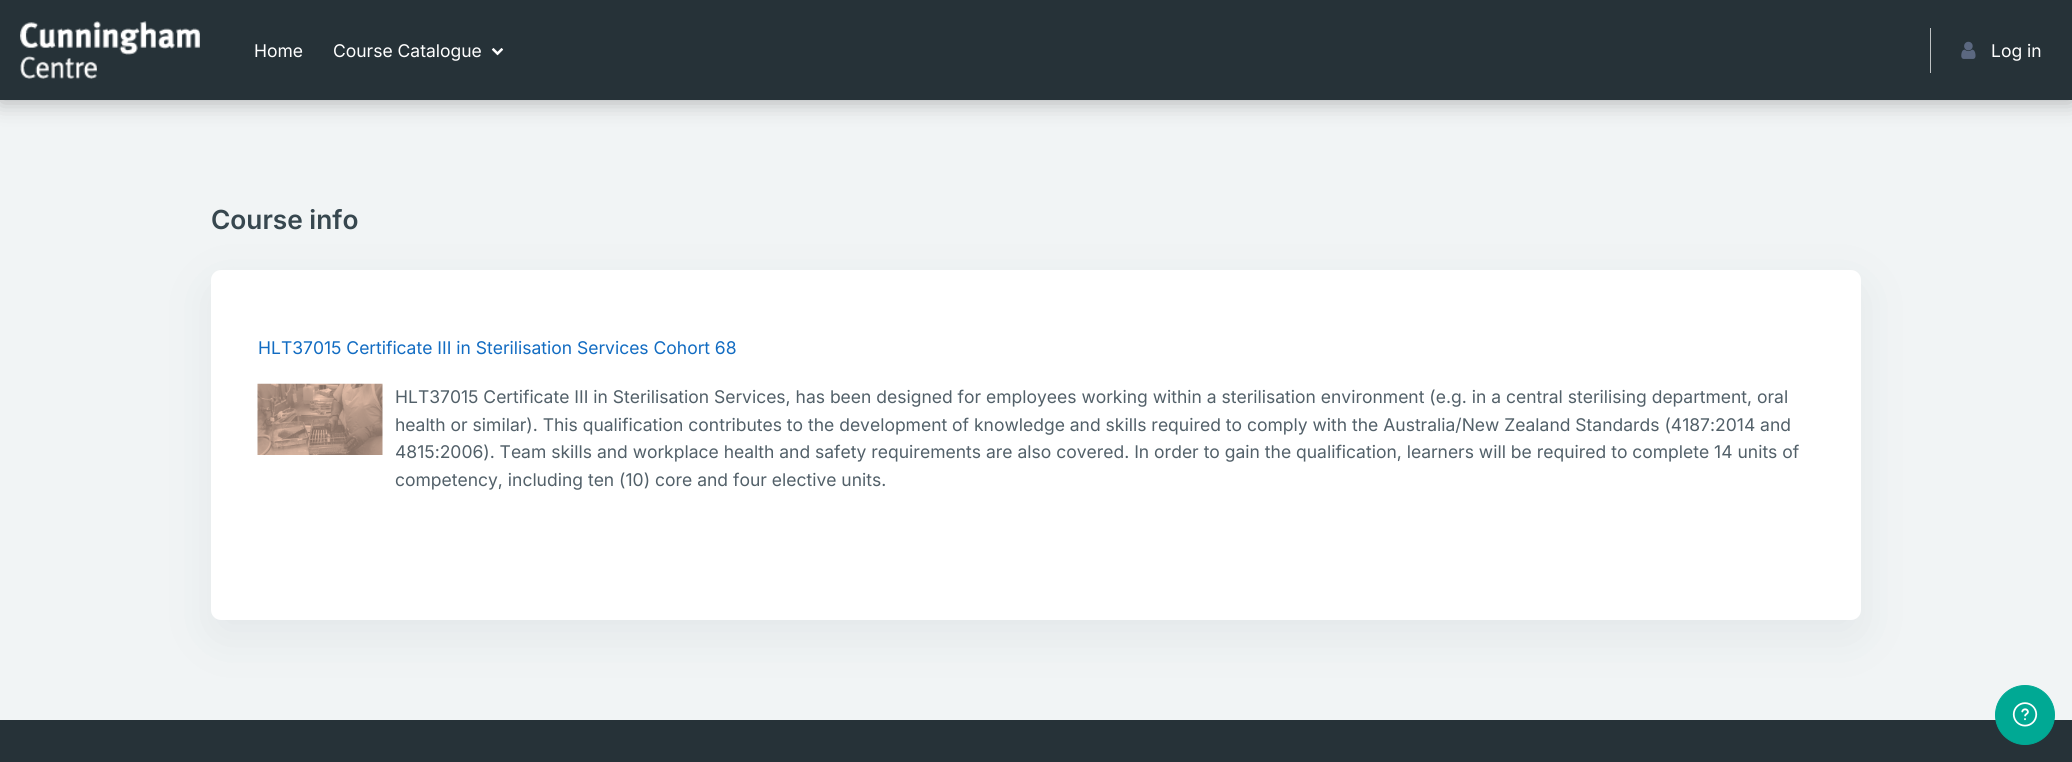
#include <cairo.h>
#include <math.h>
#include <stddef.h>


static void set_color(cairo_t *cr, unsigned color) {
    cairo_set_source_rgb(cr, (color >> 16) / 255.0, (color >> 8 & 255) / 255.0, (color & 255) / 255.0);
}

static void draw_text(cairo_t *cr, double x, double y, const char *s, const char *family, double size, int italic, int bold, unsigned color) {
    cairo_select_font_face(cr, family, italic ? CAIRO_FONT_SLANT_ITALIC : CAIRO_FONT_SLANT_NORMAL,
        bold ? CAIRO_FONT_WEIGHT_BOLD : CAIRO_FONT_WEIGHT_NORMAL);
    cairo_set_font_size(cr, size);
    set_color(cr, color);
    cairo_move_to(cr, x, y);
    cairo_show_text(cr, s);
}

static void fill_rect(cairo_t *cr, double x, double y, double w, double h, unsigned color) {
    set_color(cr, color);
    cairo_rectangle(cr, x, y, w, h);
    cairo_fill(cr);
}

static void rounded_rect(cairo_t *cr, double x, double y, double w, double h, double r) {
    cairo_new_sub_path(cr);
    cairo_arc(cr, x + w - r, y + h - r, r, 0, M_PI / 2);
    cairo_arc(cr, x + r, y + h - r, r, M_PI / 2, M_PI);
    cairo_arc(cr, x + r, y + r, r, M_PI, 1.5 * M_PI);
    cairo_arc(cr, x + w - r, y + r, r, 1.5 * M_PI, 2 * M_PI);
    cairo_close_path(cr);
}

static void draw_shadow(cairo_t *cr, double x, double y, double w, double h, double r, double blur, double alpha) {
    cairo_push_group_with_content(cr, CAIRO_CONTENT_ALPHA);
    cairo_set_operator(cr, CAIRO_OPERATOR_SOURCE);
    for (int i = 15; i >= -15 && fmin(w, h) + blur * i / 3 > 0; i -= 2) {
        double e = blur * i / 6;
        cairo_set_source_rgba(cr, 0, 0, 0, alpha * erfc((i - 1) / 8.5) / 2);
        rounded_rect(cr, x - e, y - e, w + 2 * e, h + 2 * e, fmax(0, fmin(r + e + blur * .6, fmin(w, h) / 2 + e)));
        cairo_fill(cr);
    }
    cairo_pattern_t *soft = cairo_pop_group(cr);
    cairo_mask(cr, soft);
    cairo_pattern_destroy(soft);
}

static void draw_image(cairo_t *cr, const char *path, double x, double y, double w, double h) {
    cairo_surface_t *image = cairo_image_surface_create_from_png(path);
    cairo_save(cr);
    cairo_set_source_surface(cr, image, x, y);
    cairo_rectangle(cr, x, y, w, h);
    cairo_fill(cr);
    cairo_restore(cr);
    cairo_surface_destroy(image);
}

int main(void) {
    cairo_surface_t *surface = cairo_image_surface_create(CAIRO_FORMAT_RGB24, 2072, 762);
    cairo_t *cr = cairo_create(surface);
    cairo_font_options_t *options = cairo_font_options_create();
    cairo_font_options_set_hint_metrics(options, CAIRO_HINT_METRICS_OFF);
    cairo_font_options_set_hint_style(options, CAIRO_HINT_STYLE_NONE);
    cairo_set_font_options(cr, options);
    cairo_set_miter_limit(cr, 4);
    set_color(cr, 0x263238);
    cairo_paint(cr);
    fill_rect(cr, 0, 100, 2072, 620, 0xF1F4F5);
    set_color(cr, 0x000000);
    draw_shadow(cr, 0, 3, 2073, 100, 0, 11, 0.25);
    fill_rect(cr, 0, 0, 2072, 100, 0x263238);
    draw_image(cr, "assets/img1.png", 20, 21, 180, 58);
    draw_text(cr, 254, 57, "Home", "Inter", 17.5, 0, 0, 0xFFFFFF);
    draw_text(cr, 333, 57, "Course Catalogue", "Inter", 17.5, 0, 0, 0xFFFFFF);
    draw_image(cr, "assets/img2.png", 491, 48, 13, 8);
    fill_rect(cr, 1930, 28, 1, 45, 0xBEC2C3);
    draw_image(cr, "assets/img3.png", 1961, 41, 15, 18);
    draw_text(cr, 1991, 57, "Log in", "Inter", 17.5, 0, 0, 0xFFFFFF);
    set_color(cr, 0x5C6B79);
    draw_shadow(cr, 211, 286, 1650, 350, 10, 23, 0.1);
    draw_text(cr, 211, 229, "Course info", "Inter SemiBold", 26.25, 0, 0, 0x37474F);
    set_color(cr, 0xFFFFFF);
    rounded_rect(cr, 211, 270, 1650, 350, 10);
    cairo_fill(cr);
    draw_text(cr, 258, 354, "HLT37015 Certificate III in Sterilisation Services Cohort 68", "Inter", 17.5, 0, 0, 0x126CC2);
    draw_image(cr, "assets/img4.png", 257, 383, 126, 72);
    draw_text(cr, 395, 403, "HLT37015 Certificate III in Sterilisation Services, has been designed for employees working within a sterilisation environment (e.g. in a central sterilising department, oral", "Inter", 17.5, 0, 0, 0x526069);
    draw_text(cr, 395, 431, "health or similar). This qualification contributes to the development of knowledge and skills required to comply with the Australia/New Zealand Standards (4187:2014 and", "Inter", 17.5, 0, 0, 0x526069);
    draw_text(cr, 395, 458, "4815:2006). Team skills and workplace health and safety requirements are also covered. In order to gain the qualification, learners will be required to complete 14 units of", "Inter", 17.5, 0, 0, 0x526069);
    draw_text(cr, 395, 486, "competency, including ten (10) core and four elective units.", "Inter", 17.5, 0, 0, 0x526069);
    set_color(cr, 0x00A994);
    cairo_new_path(cr);
    cairo_arc(cr, 2025, 715, 29.5, 0, 2 * M_PI);
    cairo_fill_preserve(cr);
    cairo_set_line_width(cr, 1);
    cairo_stroke(cr);
    draw_image(cr, "assets/img5.png", 2012, 702, 26, 25);
    cairo_surface_write_to_png(surface, "output.png");
    cairo_font_options_destroy(options);
    cairo_destroy(cr);
    cairo_surface_destroy(surface);
    return 0;
}
